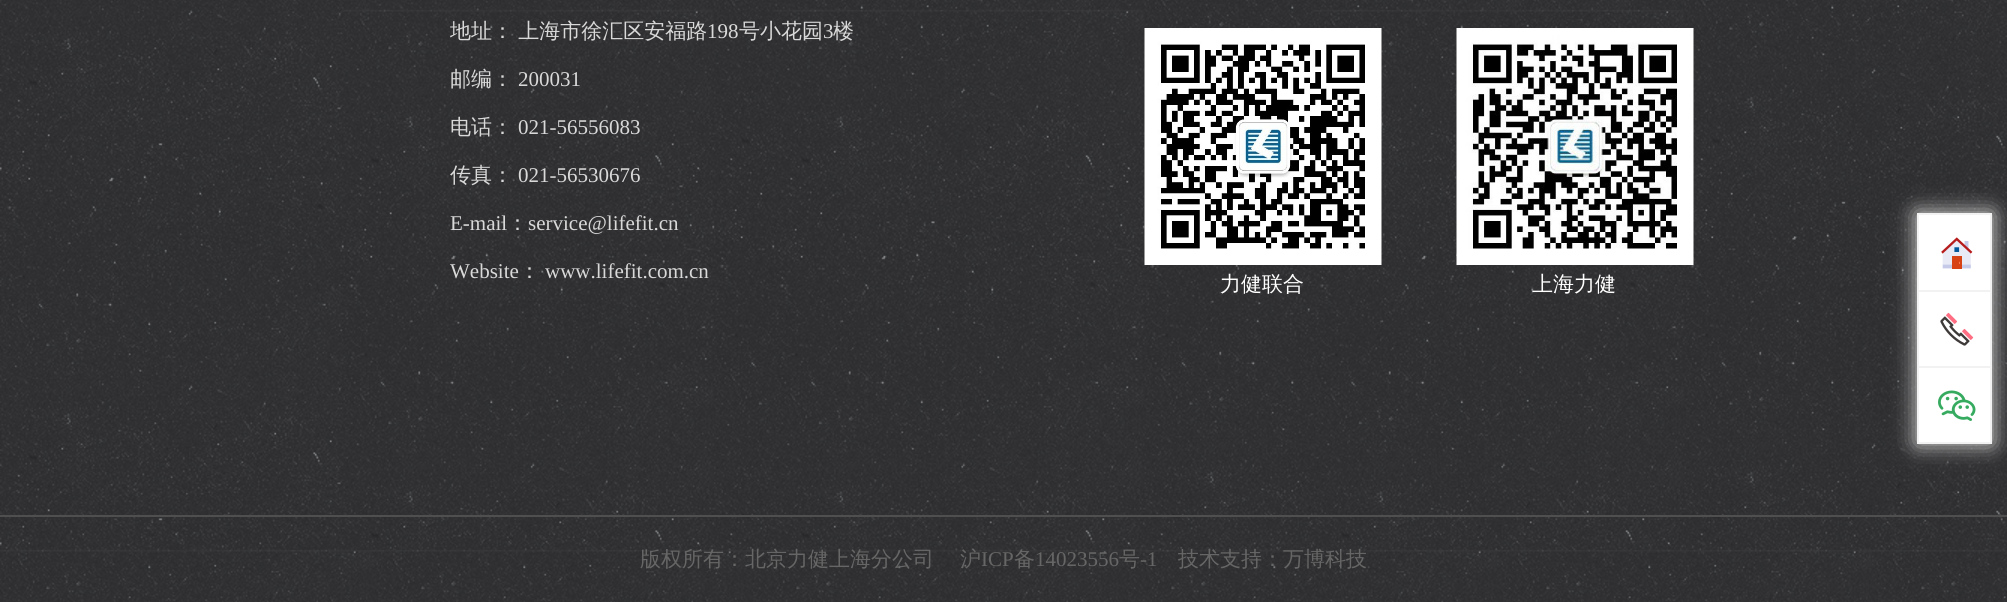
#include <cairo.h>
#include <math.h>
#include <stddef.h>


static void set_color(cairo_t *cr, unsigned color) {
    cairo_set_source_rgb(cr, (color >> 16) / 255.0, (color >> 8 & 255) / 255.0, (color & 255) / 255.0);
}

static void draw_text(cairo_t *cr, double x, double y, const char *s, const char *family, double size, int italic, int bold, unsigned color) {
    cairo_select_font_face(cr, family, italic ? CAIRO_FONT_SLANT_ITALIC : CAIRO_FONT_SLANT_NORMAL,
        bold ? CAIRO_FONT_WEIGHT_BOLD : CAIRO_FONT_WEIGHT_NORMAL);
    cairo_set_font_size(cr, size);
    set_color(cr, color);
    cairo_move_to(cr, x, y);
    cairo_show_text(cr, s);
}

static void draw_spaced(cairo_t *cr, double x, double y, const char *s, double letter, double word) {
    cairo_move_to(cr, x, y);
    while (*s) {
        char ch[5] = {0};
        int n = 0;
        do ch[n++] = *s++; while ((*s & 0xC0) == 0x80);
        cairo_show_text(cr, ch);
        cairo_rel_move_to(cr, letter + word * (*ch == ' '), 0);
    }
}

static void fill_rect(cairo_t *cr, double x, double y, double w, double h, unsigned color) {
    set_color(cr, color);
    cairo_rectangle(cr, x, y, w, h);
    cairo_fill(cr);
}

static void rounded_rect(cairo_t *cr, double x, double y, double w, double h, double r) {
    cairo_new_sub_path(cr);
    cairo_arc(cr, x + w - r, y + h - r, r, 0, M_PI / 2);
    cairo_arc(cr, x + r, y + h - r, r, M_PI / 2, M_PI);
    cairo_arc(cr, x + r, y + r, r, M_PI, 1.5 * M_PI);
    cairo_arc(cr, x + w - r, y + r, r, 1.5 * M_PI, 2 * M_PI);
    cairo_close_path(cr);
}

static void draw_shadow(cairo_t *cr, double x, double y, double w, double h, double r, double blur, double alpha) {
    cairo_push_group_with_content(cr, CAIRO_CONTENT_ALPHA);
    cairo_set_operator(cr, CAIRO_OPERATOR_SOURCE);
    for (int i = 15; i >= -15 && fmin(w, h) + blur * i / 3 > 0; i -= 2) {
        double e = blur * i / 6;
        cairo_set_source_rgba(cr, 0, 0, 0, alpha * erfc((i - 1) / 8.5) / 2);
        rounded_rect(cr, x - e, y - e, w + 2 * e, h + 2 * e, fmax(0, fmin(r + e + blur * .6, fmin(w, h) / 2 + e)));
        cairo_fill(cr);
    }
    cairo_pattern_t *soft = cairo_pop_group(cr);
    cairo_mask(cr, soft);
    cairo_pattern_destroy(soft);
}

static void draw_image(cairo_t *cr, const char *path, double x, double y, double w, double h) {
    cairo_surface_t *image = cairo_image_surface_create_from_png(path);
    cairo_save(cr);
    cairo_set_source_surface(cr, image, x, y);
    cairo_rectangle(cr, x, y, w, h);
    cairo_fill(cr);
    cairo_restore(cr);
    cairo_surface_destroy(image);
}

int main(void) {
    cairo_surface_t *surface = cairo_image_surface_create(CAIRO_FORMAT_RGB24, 2007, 602);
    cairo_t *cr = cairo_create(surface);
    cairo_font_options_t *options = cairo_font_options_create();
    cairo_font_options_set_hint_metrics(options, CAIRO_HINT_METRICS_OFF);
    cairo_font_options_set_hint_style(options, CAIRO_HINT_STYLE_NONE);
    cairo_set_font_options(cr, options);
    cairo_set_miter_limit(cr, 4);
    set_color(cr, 0xFFFFFF);
    cairo_paint(cr);
    draw_image(cr, "assets/img1.png", 0, 0, 2007, 602);
    cairo_select_font_face(cr, "WenQuanYi Zen Hei Medium", CAIRO_FONT_SLANT_NORMAL, CAIRO_FONT_WEIGHT_NORMAL);
    cairo_set_font_size(cr, 21);
    set_color(cr, 0xD9D9D9);
    draw_spaced(cr, 450, 38, "地址： 上海市徐汇区安福路", 0, -1);
    draw_text(cr, 707, 38, "198", "Liberation Serif", 21, 0, 0, 0xD9D9D9);
    draw_text(cr, 739, 38, "号小花园", "WenQuanYi Zen Hei Medium", 21, 0, 0, 0xD9D9D9);
    draw_text(cr, 823, 38, "3", "Liberation Serif", 21, 0, 0, 0xD9D9D9);
    draw_text(cr, 833, 38, "楼", "WenQuanYi Zen Hei Medium", 21, 0, 0, 0xD9D9D9);
    draw_text(cr, 450, 86, "邮编：", "WenQuanYi Zen Hei Medium", 21, 0, 0, 0xD9D9D9);
    draw_text(cr, 518, 86, "200031", "Liberation Serif", 21, 0, 0, 0xD9D9D9);
    draw_text(cr, 450, 134, "电话：", "WenQuanYi Zen Hei Medium", 21, 0, 0, 0xD9D9D9);
    draw_text(cr, 518, 134, "021-56556083", "Liberation Serif", 21, 0, 0, 0xD9D9D9);
    draw_text(cr, 450, 182, "传真：", "WenQuanYi Zen Hei Medium", 21, 0, 0, 0xD9D9D9);
    draw_text(cr, 518, 182, "021-56530676", "Liberation Serif", 21, 0, 0, 0xD9D9D9);
    draw_text(cr, 450, 230, "E-mail", "Liberation Serif", 21, 0, 0, 0xD9D9D9);
    draw_text(cr, 507, 230, "：", "WenQuanYi Zen Hei Medium", 21, 0, 0, 0xD9D9D9);
    draw_text(cr, 528, 230, "service@lifefit.cn", "Liberation Serif", 21, 0, 0, 0xD9D9D9);
    draw_text(cr, 450, 278, "Website", "Liberation Serif", 21, 0, 0, 0xD9D9D9);
    draw_text(cr, 519, 278, "：", "WenQuanYi Zen Hei Medium", 21, 0, 0, 0xD9D9D9);
    draw_text(cr, 545, 278, "www.lifefit.com.cn", "Liberation Serif", 21, 0, 0, 0xD9D9D9);
    draw_image(cr, "assets/img2.png", 1144, 28, 238, 237);
    draw_text(cr, 1220, 291, "力健联合", "WenQuanYi Zen Hei Medium", 21, 0, 0, 0xFFFFFF);
    draw_image(cr, "assets/img3.png", 1456, 28, 238, 237);
    draw_text(cr, 1532, 291, "上海力健", "WenQuanYi Zen Hei Medium", 21, 0, 0, 0xFFFFFF);
    fill_rect(cr, 0, 515, 2007, 2, 0x4F4F4F);
    draw_text(cr, 640, 566, "版权所有：北京力健上海分公司", "WenQuanYi Zen Hei Medium", 21, 0, 0, 0x666666);
    draw_text(cr, 960, 566, "沪", "WenQuanYi Zen Hei Medium", 21, 0, 0, 0x666666);
    draw_text(cr, 981, 566, "ICP", "Liberation Serif", 21, 0, 0, 0x666666);
    draw_text(cr, 1014, 566, "备", "WenQuanYi Zen Hei Medium", 21, 0, 0, 0x666666);
    draw_text(cr, 1035, 566, "14023556", "Liberation Serif", 21, 0, 0, 0x666666);
    draw_text(cr, 1119, 566, "号", "WenQuanYi Zen Hei Medium", 21, 0, 0, 0x666666);
    draw_text(cr, 1140, 566, "-1", "Liberation Serif", 21, 0, 0, 0x666666);
    draw_text(cr, 1178, 566, "技术支持：万博科技", "WenQuanYi Zen Hei Medium", 21, 0, 0, 0x666666);
    set_color(cr, 0xE4E4E4);
    draw_shadow(cr, 1917, 213, 75, 231, 0, 11, 1);
    set_color(cr, 0xFFFFFF);
    cairo_rectangle(cr, 1918, 214, 73, 229);
    cairo_fill_preserve(cr);
    set_color(cr, 0xF2F2F2);
    cairo_stroke(cr);
    fill_rect(cr, 1919, 290, 72, 2, 0xF2F2F2);
    draw_image(cr, "assets/img4.png", 1941, 237, 32, 32);
    fill_rect(cr, 1919, 366, 72, 2, 0xF2F2F2);
    draw_image(cr, "assets/img5.png", 1940, 312, 34, 34);
    draw_image(cr, "assets/img6.png", 1938, 390, 38, 31);
    cairo_surface_write_to_png(surface, "output.png");
    cairo_font_options_destroy(options);
    cairo_destroy(cr);
    cairo_surface_destroy(surface);
    return 0;
}
